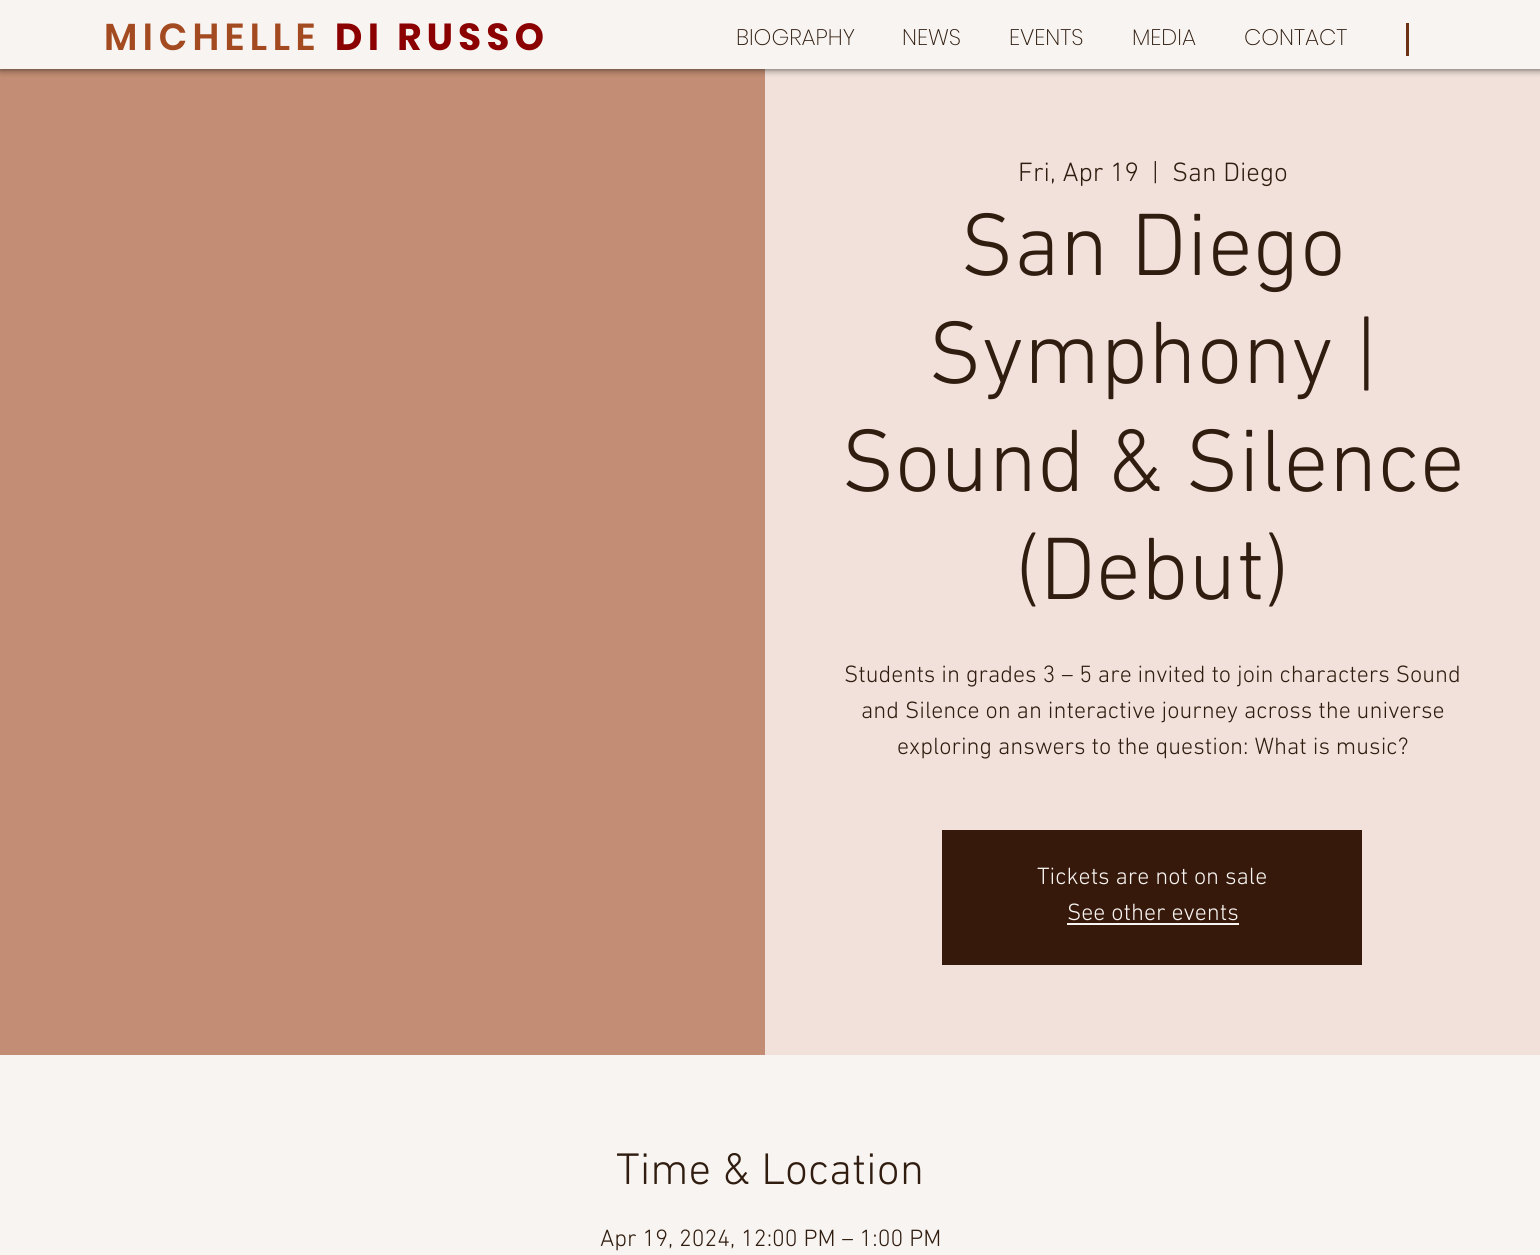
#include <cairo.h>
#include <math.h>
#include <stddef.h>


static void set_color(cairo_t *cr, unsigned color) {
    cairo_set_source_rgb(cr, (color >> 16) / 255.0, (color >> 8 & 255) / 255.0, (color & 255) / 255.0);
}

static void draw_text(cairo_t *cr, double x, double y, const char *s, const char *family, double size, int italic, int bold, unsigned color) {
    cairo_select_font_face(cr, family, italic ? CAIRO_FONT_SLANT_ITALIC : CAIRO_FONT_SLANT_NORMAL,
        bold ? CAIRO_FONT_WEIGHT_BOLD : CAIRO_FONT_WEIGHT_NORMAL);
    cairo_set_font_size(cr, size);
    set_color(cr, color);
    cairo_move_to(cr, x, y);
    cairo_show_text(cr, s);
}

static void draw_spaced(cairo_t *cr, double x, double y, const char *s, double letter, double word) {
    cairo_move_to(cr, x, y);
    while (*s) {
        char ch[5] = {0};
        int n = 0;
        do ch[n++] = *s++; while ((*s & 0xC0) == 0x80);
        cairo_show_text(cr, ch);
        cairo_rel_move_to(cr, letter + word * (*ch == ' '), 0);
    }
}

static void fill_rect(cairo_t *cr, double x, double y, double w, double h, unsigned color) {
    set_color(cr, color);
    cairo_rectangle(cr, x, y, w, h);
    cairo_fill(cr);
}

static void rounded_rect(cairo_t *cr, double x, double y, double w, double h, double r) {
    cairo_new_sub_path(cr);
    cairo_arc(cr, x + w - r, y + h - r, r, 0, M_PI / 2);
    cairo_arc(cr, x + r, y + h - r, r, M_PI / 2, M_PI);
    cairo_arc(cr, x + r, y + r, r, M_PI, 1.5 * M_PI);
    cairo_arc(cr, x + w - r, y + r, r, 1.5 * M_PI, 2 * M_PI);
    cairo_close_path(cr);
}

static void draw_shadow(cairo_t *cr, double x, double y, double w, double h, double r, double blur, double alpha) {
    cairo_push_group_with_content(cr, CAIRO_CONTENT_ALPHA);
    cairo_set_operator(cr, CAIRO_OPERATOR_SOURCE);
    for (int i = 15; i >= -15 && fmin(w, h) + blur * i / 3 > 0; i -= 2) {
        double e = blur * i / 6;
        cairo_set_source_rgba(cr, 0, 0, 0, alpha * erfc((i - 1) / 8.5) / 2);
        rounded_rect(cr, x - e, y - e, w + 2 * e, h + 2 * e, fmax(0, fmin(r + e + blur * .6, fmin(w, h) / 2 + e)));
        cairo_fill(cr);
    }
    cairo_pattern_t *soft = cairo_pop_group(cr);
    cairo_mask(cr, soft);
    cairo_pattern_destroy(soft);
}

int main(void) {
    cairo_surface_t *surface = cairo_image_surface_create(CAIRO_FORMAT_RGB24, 1540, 1255);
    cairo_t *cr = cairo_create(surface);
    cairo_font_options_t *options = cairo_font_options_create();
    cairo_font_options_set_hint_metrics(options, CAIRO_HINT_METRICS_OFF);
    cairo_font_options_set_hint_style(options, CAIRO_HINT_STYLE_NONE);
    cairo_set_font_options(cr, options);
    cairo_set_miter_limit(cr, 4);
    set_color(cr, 0xF8F4F1);
    cairo_paint(cr);
    fill_rect(cr, 0, 69, 765, 986, 0xC28D74);
    fill_rect(cr, 765, 69, 775, 986, 0xF2E1DB);
    cairo_save(cr);
    cairo_rectangle(cr, 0, 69, 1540, 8);
    cairo_clip(cr);
    set_color(cr, 0x000000);
    draw_shadow(cr, 0, 0, 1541, 69, 0, 4, 0.7);
    cairo_restore(cr);
    cairo_select_font_face(cr, "Poppins SemiBold", CAIRO_FONT_SLANT_NORMAL, CAIRO_FONT_WEIGHT_NORMAL);
    cairo_set_font_size(cr, 37.5);
    set_color(cr, 0xA34A21);
    draw_spaced(cr, 104, 50, "MICHELLE", 5.5, 0);
    cairo_select_font_face(cr, "Poppins", CAIRO_FONT_SLANT_NORMAL, CAIRO_FONT_WEIGHT_BOLD);
    set_color(cr, 0x8B0000);
    draw_spaced(cr, 335, 50, "DI RUSSO", 5.5, 0);
    draw_text(cr, 736, 45, "BIOGRAPHY", "Poppins ExtraLight", 22.5, 0, 0, 0x301D10);
    draw_text(cr, 902, 45, "NEWS", "Poppins ExtraLight", 22.5, 0, 0, 0x301D10);
    draw_text(cr, 1009, 45, "EVENTS", "Poppins ExtraLight", 22.5, 0, 0, 0x301D10);
    draw_text(cr, 1132, 45, "MEDIA", "Poppins ExtraLight", 22.5, 0, 0, 0x301D10);
    draw_text(cr, 1244, 45, "CONTACT", "Poppins ExtraLight", 22.5, 0, 0, 0x301D10);
    fill_rect(cr, 1406, 23, 3, 33, 0x6D3116);
    draw_text(cr, 1018, 181, "Fri, Apr 19", "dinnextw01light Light", 27, 0, 0, 0x301D10);
    draw_text(cr, 1152, 181, "|", "dinnextw01light Light", 27, 0, 0, 0x301D10);
    draw_text(cr, 1172, 181, "San Diego", "dinnextw01light Light", 27, 0, 0, 0x301D10);
    draw_text(cr, 960, 275, "San Diego", "dinnextw01light Light", 90, 0, 0, 0x301D10);
    draw_text(cr, 928, 383, "Symphony |", "dinnextw01light Light", 90, 0, 0, 0x301D10);
    draw_text(cr, 841, 491, "Sound & Silence", "dinnextw01light Light", 90, 0, 0, 0x301D10);
    draw_text(cr, 1015, 599, "(Debut)", "dinnextw01light Light", 90, 0, 0, 0x301D10);
    draw_text(cr, 844, 682, "Students in grades 3 – 5 are invited to join characters Sound", "dinnextw01light Light", 24, 0, 0, 0x301D10);
    draw_text(cr, 861, 718, "and Silence on an interactive journey across the universe", "dinnextw01light Light", 24, 0, 0, 0x301D10);
    draw_text(cr, 897, 754, "exploring answers to the question: What is music?", "dinnextw01light Light", 24, 0, 0, 0x301D10);
    fill_rect(cr, 942, 830, 420, 135, 0x36190B);
    draw_text(cr, 1037, 884, "Tickets are not on sale", "dinnextw01light Light", 24, 0, 0, 0xF8F4F1);
    draw_text(cr, 1067, 920, "See other events", "dinnextw01light Light", 24, 0, 0, 0xF8F4F1);
    fill_rect(cr, 1067, 923, 172, 2, 0xF8F4F1);
    draw_text(cr, 616, 1184, "Time & Location", "dinnextw01light Light", 45, 0, 0, 0x301D10);
    draw_text(cr, 600, 1246, "Apr 19, 2024, 12:00 PM – 1:00 PM", "dinnextw01light Light", 24, 0, 0, 0x301D10);
    cairo_surface_write_to_png(surface, "output.png");
    cairo_font_options_destroy(options);
    cairo_destroy(cr);
    cairo_surface_destroy(surface);
    return 0;
}
